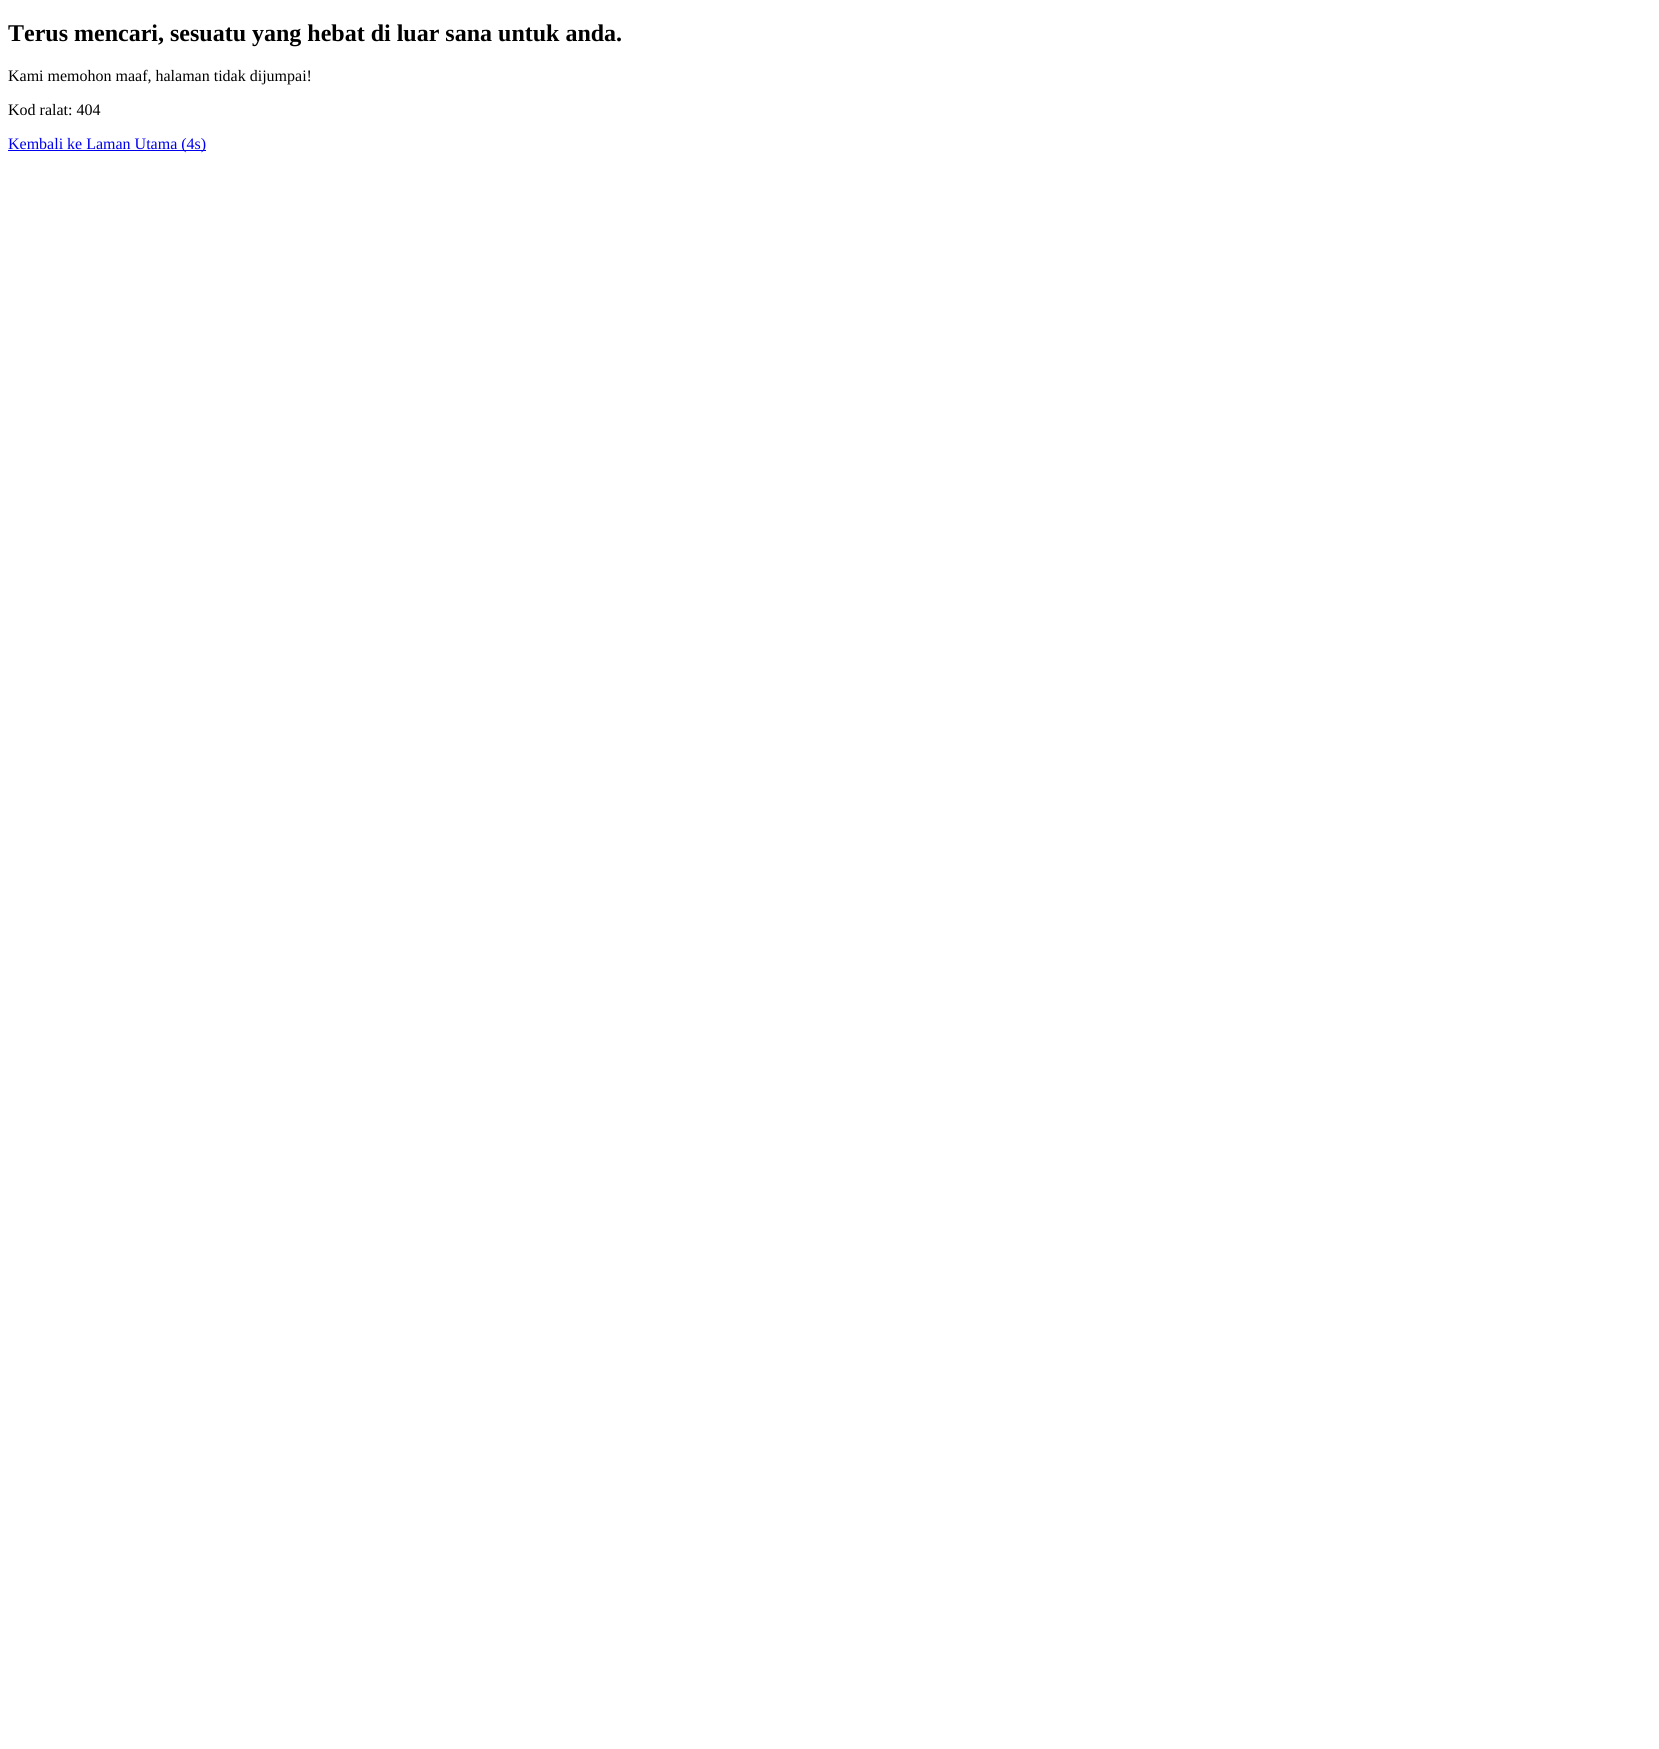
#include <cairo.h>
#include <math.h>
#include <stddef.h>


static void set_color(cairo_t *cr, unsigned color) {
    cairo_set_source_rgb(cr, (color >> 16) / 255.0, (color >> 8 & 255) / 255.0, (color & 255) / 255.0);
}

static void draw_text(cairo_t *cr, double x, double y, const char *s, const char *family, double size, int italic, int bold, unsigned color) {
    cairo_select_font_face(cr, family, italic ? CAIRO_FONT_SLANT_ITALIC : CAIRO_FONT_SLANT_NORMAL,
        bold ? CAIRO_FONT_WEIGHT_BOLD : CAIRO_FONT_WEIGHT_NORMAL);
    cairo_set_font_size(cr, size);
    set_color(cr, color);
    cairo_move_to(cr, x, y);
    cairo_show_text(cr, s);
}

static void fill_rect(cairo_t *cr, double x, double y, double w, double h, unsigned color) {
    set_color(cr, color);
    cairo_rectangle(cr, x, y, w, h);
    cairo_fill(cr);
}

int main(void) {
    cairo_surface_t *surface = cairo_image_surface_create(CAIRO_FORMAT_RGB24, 1659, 1749);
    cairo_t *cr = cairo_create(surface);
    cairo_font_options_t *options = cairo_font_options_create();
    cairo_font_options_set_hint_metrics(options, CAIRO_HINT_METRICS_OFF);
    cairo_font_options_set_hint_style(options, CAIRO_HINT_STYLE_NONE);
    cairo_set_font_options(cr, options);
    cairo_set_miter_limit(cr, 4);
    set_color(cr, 0xFFFFFF);
    cairo_paint(cr);
    draw_text(cr, 8, 41, "Terus mencari, sesuatu yang hebat di luar sana untuk anda.", "Liberation Serif", 24, 0, 1, 0x000000);
    draw_text(cr, 8, 81, "Kami memohon maaf, halaman tidak dijumpai!", "Liberation Serif", 16, 0, 0, 0x000000);
    draw_text(cr, 8, 115, "Kod ralat: 404", "Liberation Serif", 16, 0, 0, 0x000000);
    fill_rect(cr, 8, 150, 198, 1, 0x0000EE);
    draw_text(cr, 8, 149, "Kembali ke Laman Utama (4s)", "Liberation Serif", 16, 0, 0, 0x0000EE);
    cairo_surface_write_to_png(surface, "output.png");
    cairo_font_options_destroy(options);
    cairo_destroy(cr);
    cairo_surface_destroy(surface);
    return 0;
}
